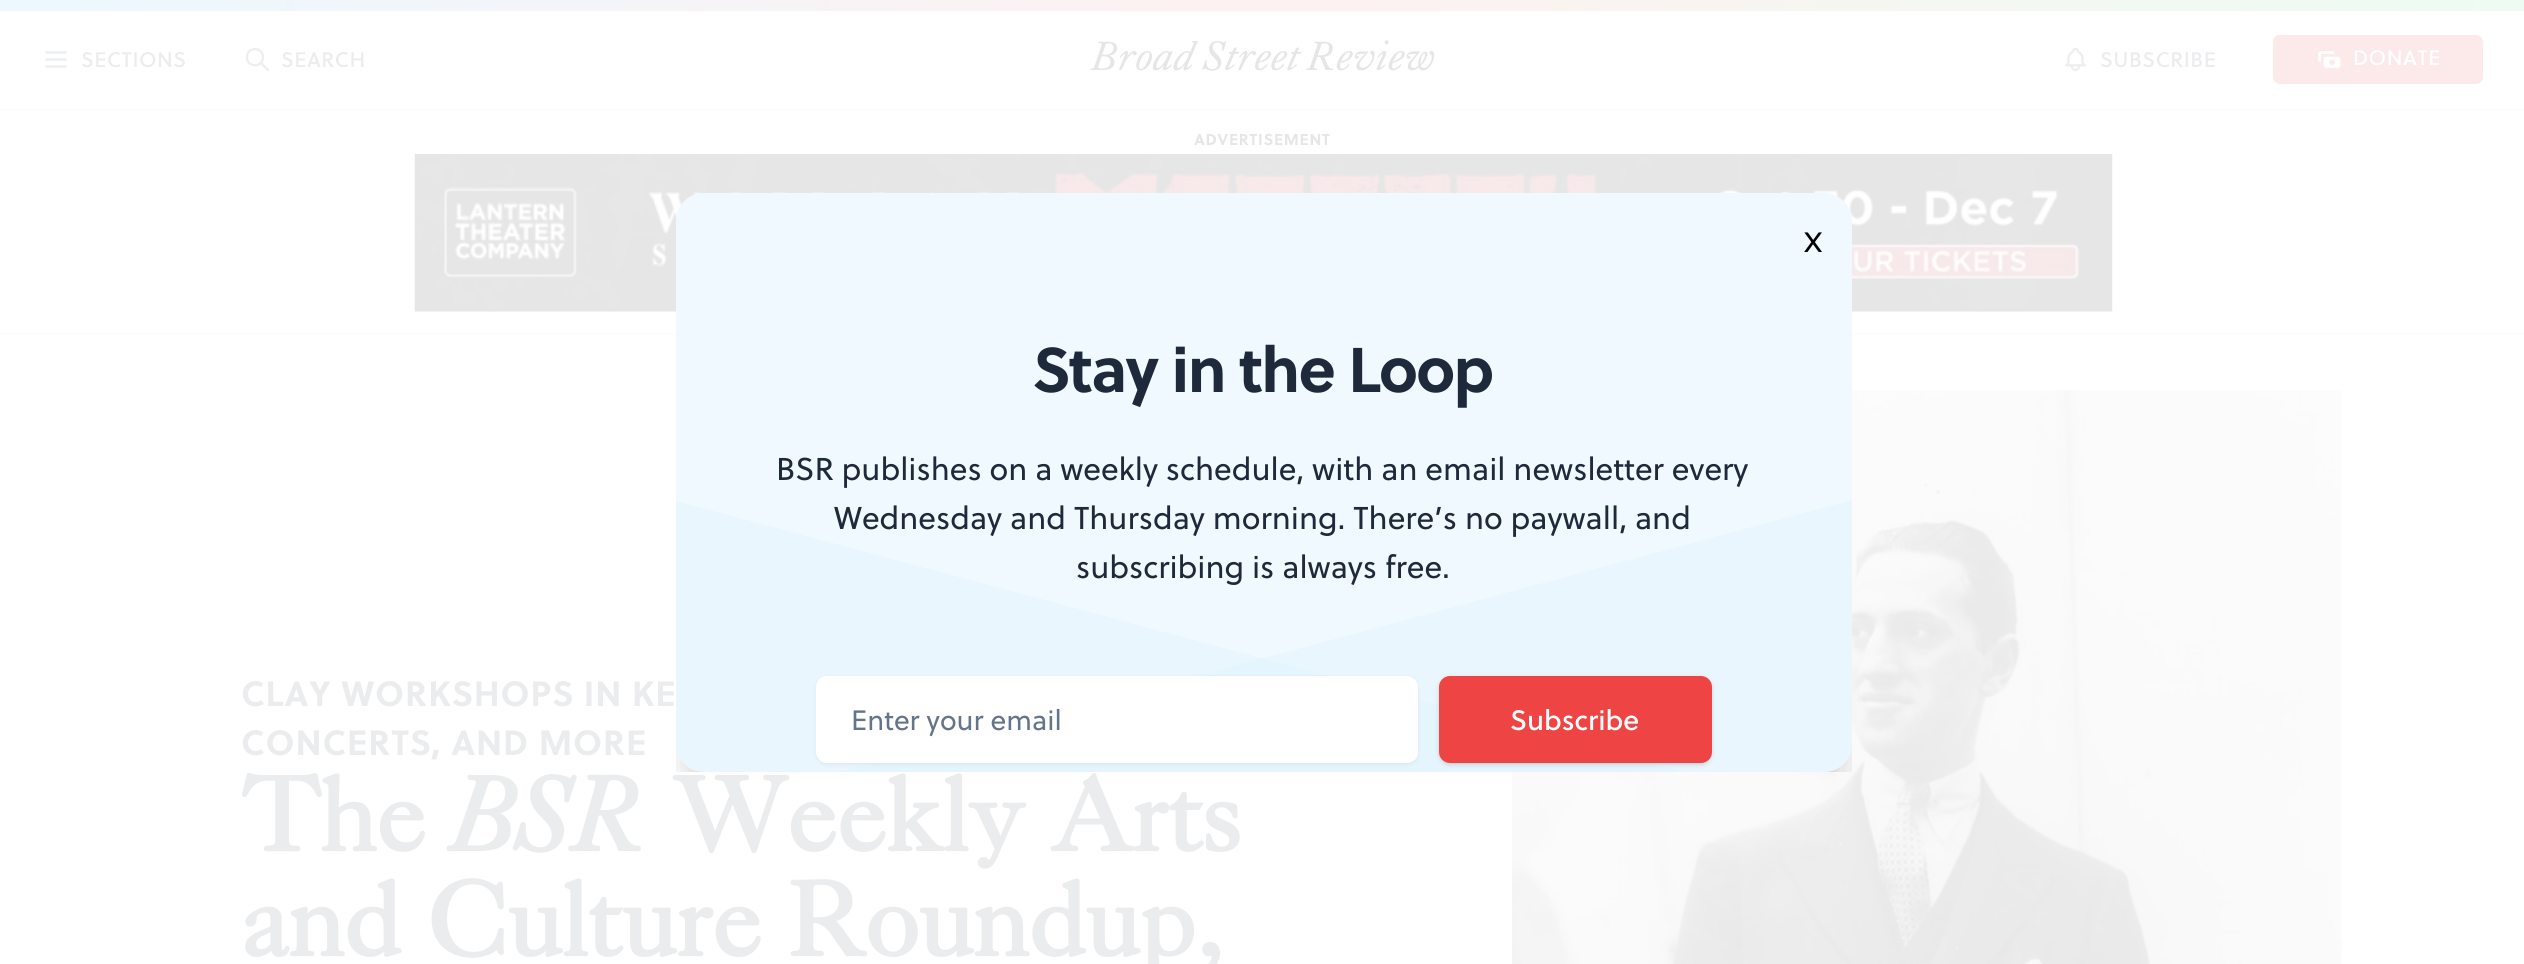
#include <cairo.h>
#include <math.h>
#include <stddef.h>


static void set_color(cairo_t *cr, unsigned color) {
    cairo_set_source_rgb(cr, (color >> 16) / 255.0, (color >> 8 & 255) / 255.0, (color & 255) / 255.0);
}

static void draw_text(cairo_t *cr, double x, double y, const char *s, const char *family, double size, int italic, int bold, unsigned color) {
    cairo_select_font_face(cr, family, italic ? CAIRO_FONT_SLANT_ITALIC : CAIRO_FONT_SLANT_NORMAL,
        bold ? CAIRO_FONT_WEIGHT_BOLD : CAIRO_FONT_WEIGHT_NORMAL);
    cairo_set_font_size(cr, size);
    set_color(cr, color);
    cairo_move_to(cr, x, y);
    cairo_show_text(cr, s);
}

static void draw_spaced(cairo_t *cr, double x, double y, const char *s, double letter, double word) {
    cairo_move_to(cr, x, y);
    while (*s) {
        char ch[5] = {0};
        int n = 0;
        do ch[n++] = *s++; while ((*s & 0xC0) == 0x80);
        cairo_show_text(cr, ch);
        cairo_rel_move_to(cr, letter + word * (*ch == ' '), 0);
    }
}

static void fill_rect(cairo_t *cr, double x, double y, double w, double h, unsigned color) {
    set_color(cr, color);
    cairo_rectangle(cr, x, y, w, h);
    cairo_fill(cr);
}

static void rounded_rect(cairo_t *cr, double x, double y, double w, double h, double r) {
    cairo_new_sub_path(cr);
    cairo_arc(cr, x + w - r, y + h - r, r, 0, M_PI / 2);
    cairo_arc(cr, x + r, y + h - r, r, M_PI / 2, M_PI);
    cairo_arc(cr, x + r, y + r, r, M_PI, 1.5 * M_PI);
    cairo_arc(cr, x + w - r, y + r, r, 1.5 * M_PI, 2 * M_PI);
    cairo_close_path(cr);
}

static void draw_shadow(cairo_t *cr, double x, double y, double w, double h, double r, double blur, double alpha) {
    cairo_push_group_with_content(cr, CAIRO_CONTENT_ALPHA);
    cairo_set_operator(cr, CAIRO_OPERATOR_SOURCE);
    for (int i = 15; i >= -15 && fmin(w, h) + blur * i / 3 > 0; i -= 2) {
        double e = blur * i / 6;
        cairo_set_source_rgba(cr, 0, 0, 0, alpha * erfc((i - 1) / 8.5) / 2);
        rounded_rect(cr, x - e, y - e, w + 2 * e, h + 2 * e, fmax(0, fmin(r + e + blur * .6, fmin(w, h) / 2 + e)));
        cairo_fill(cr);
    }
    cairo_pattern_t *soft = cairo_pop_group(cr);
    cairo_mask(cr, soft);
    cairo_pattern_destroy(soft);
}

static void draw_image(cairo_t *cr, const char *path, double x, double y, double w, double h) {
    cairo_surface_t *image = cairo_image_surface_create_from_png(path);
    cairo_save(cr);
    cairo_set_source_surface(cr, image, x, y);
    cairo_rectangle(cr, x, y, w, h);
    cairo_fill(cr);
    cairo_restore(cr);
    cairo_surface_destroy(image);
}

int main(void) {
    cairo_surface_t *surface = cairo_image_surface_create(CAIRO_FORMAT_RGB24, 2524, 964);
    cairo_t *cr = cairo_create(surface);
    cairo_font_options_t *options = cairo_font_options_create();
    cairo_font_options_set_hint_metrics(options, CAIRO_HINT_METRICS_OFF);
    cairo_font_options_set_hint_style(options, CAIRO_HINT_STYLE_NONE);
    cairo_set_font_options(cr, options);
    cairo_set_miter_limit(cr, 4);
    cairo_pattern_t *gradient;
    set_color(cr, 0xFFFFFF);
    cairo_paint(cr);
    gradient = cairo_pattern_create_linear(0, 54, 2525, 54);
    cairo_pattern_add_color_stop_rgba(gradient, 0, 0.922, 0.973, 0.996, 1);
    cairo_pattern_add_color_stop_rgba(gradient, 0.5, 0.996, 0.945, 0.945, 1);
    cairo_pattern_add_color_stop_rgba(gradient, 1, 0.929, 0.988, 0.949, 1);
    cairo_set_source(cr, gradient);
    cairo_pattern_destroy(gradient);
    cairo_rectangle(cr, 0, 0, 2524, 11);
    cairo_fill(cr);
    fill_rect(cr, 0, 109, 2524, 2, 0xFCFDFE);
    cairo_new_path(cr);
    cairo_move_to(cr, 46.5, 52.5);
    cairo_line_to(cr, 65.5, 52.5);
    cairo_move_to(cr, 46.5, 59.5);
    cairo_line_to(cr, 65.5, 59.5);
    cairo_move_to(cr, 46.5, 66.5);
    cairo_line_to(cr, 65.5, 66.5);
    set_color(cr, 0xEDEEF0);
    cairo_set_line_width(cr, 2.3);
    cairo_set_line_cap(cr, CAIRO_LINE_CAP_ROUND);
    cairo_set_line_join(cr, CAIRO_LINE_JOIN_ROUND);
    cairo_stroke(cr);
    cairo_select_font_face(cr, "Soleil", CAIRO_FONT_SLANT_NORMAL, CAIRO_FONT_WEIGHT_NORMAL);
    cairo_set_font_size(cr, 21);
    set_color(cr, 0xEBECEE);
    draw_spaced(cr, 81, 67, "SECTIONS", 0.5, 0);
    cairo_new_path(cr);
    cairo_move_to(cr, 268, 70);
    cairo_line_to(cr, 261, 63);
    cairo_move_to(cr, 263, 57);
    cairo_curve_to(cr, 263, 68, 246.5, 68, 247, 57);
    cairo_curve_to(cr, 247, 46.5, 263, 46.5, 263, 57);
    cairo_close_path(cr);
    set_color(cr, 0xEDEEF0);
    cairo_stroke(cr);
    set_color(cr, 0xEBECEE);
    draw_spaced(cr, 281, 67, "SEARCH", 0.5, 0);
    draw_text(cr, 1091, 70, "Broad Street Review", "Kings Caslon", 42, 1, 0, 0xE6E6E6);
    draw_image(cr, "assets/img1.png", 2065, 47, 21, 25);
    cairo_select_font_face(cr, "Soleil", CAIRO_FONT_SLANT_NORMAL, CAIRO_FONT_WEIGHT_NORMAL);
    cairo_set_font_size(cr, 21);
    set_color(cr, 0xEBECEE);
    draw_spaced(cr, 2100, 67, "SUBSCRIBE", 0.5, 0);
    set_color(cr, 0xFCE9E9);
    rounded_rect(cr, 2273, 35, 210, 49, 7);
    cairo_fill(cr);
    draw_image(cr, "assets/img2.png", 2318, 51, 23, 17);
    set_color(cr, 0xFFFFFF);
    draw_spaced(cr, 2353, 65, "DONATE", 0.5, 0);
    fill_rect(cr, 0, 333, 2524, 2, 0xFCFDFE);
    cairo_select_font_face(cr, "Soleil", CAIRO_FONT_SLANT_NORMAL, CAIRO_FONT_WEIGHT_BOLD);
    cairo_set_font_size(cr, 15.75);
    set_color(cr, 0xE6E6E6);
    draw_spaced(cr, 1194, 145, "ADVERTISEMENT", 0.75, 0);
    draw_image(cr, "assets/img3.png", 414, 154, 1699, 158);
    draw_image(cr, "assets/img4.png", 1512, 390, 830, 574);
    cairo_save(cr);
    cairo_rectangle(cr, 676, 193, 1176, 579);
    cairo_clip(cr);
    set_color(cr, 0x000000);
    draw_shadow(cr, 686, 217, 1155, 558, 18, 9, 0.1);
    draw_shadow(cr, 684, 236, 1159, 562, 19, 22, 0.1);
    cairo_restore(cr);
    set_color(cr, 0xF0F9FF);
    rounded_rect(cr, 676, 193, 1176, 579, 28);
    cairo_fill(cr);
    draw_text(cr, 1804, 252, "X", "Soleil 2", 28, 0, 0, 0x000000);
    cairo_select_font_face(cr, "Soleil", CAIRO_FONT_SLANT_NORMAL, CAIRO_FONT_WEIGHT_BOLD);
    cairo_set_font_size(cr, 63);
    set_color(cr, 0x1E293B);
    draw_spaced(cr, 1032, 392, "Stay in the Loop", -1.6, 0);
    draw_text(cr, 776, 480, "BSR publishes on a weekly schedule, with an email newsletter every", "Soleil 2", 31.5, 0, 0, 0x1E293B);
    cairo_set_source_rgba(cr, 0.878, 0.949, 0.996, 0.4);
    cairo_new_path(cr);
    cairo_move_to(cr, 1686, 772);
    cairo_line_to(cr, 704, 772);
    cairo_curve_to(cr, 689, 772, 676, 759, 676, 744);
    cairo_line_to(cr, 676, 501);
    cairo_close_path(cr);
    cairo_fill(cr);
    cairo_new_path(cr);
    cairo_move_to(cr, 1852, 500);
    cairo_line_to(cr, 1852, 744);
    cairo_curve_to(cr, 1852, 759, 1839, 772, 1824, 772);
    cairo_line_to(cr, 839, 772);
    cairo_close_path(cr);
    cairo_fill(cr);
    draw_text(cr, 834, 529, "Wednesday and Thursday morning. There’s no paywall, and", "Soleil 2", 31.5, 0, 0, 0x1E293B);
    draw_text(cr, 1076, 578, "subscribing is always free.", "Soleil 2", 31.5, 0, 0, 0x1E293B);
    set_color(cr, 0x000000);
    draw_shadow(cr, 816, 677, 602, 88, 11, 2, 0.05);
    set_color(cr, 0xFFFFFF);
    rounded_rect(cr, 816, 676, 602, 87, 11);
    cairo_fill(cr);
    draw_text(cr, 851, 730, "Enter your email", "Soleil 2", 28, 0, 0, 0x64748B);
    set_color(cr, 0x000000);
    draw_shadow(cr, 1440, 679, 270, 84, 9, 2, 0.1);
    draw_shadow(cr, 1439, 677, 273, 88, 11, 2.5, 0.1);
    set_color(cr, 0xEF4444);
    rounded_rect(cr, 1439, 676, 273, 87, 11);
    cairo_fill(cr);
    draw_text(cr, 1510, 730, "Subscribe", "Soleil", 28, 0, 0, 0xFFFFFF);
    cairo_select_font_face(cr, "Soleil", CAIRO_FONT_SLANT_NORMAL, CAIRO_FONT_WEIGHT_BOLD);
    cairo_set_font_size(cr, 35);
    set_color(cr, 0xEBECEE);
    draw_spaced(cr, 241, 706, "CLAY WORKSHOPS IN KE", 0.9, 0);
    draw_spaced(cr, 241, 755, "CONCERTS, AND MORE", 0.9, 0);
    draw_text(cr, 241, 851, "The", "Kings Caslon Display", 105, 0, 1, 0xEBECEE);
    draw_text(cr, 451, 851, "BSR", "Kings Caslon Display", 105, 1, 1, 0xEBECEE);
    draw_text(cr, 672, 851, "Weekly Arts", "Kings Caslon Display", 105, 0, 1, 0xEBECEE);
    draw_text(cr, 241, 956, "and Culture Roundup,", "Kings Caslon Display", 105, 0, 1, 0xEBECEE);
    cairo_surface_write_to_png(surface, "output.png");
    cairo_font_options_destroy(options);
    cairo_destroy(cr);
    cairo_surface_destroy(surface);
    return 0;
}
